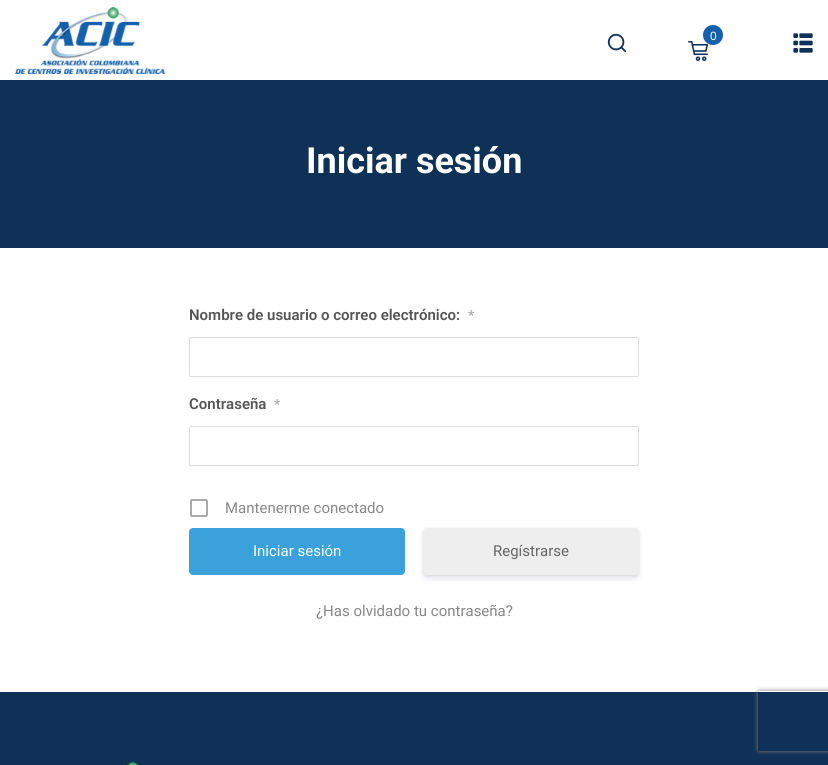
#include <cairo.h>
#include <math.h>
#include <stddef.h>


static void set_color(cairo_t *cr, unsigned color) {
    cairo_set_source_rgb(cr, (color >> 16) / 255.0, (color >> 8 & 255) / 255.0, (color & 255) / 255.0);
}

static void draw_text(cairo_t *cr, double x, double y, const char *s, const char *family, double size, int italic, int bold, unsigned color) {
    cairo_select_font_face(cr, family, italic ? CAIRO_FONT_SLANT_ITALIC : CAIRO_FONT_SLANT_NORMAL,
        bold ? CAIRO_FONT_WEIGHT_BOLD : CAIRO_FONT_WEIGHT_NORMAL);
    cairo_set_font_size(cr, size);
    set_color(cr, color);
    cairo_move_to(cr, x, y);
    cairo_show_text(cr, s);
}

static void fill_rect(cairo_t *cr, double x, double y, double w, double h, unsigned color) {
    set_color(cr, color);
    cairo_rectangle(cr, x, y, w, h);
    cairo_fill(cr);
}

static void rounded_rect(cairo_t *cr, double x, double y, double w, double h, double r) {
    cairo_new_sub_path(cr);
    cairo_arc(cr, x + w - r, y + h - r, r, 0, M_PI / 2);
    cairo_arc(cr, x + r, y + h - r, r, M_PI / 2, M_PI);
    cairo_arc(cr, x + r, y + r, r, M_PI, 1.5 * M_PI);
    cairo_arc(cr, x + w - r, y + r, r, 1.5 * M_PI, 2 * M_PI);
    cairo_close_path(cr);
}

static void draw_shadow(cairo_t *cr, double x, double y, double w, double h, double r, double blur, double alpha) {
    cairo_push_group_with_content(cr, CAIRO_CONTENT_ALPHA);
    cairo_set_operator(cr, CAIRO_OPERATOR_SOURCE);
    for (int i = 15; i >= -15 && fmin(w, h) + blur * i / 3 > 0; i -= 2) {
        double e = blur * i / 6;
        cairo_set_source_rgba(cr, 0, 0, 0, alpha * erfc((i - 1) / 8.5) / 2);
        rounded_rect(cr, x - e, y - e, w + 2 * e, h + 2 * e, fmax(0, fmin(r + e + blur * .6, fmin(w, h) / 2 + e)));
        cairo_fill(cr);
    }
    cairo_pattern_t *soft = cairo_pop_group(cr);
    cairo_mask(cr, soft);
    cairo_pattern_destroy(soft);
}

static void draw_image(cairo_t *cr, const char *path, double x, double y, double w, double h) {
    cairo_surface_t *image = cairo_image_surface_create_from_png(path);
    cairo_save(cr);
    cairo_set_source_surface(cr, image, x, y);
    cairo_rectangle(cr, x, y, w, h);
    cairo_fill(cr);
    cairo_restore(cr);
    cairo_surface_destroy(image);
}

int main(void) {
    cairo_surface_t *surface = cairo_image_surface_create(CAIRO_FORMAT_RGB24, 828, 765);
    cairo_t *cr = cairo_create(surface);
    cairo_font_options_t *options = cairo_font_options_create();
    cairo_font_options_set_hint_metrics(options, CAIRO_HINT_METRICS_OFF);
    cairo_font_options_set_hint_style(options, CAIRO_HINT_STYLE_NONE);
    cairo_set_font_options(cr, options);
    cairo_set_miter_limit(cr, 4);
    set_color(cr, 0xFFFFFF);
    cairo_paint(cr);
    draw_image(cr, "assets/img1.png", 15, 7, 150, 67);
    draw_image(cr, "assets/img2.png", 607, 33, 20, 20);
    draw_image(cr, "assets/img3.png", 688, 41, 20, 20);
    set_color(cr, 0x1560AB);
    cairo_arc(cr, 713, 35, 10, 0, 2 * M_PI);
    cairo_fill(cr);
    draw_text(cr, 710, 40, "0", "Liberation Sans", 12, 0, 0, 0xFFFFFF);
    draw_image(cr, "assets/img4.png", 793, 33, 20, 20);
    fill_rect(cr, 0, 80, 828, 168, 0x0F3057);
    draw_text(cr, 306, 173, "Iniciar sesión", "Roboto", 36, 0, 1, 0xFFFFFF);
    draw_text(cr, 189, 320, "Nombre de usuario o correo electrónico:", "Roboto SemiBold", 15, 0, 0, 0x555555);
    draw_text(cr, 468, 320, "*", "Roboto SemiBold", 14, 0, 0, 0xAAAAAA);
    rounded_rect(cr, 189.5, 337.5, 449, 39, 1.5);
    set_color(cr, 0xDDDDDD);
    cairo_set_line_width(cr, 1);
    cairo_stroke(cr);
    draw_text(cr, 189, 409, "Contraseña", "Roboto SemiBold", 15, 0, 0, 0x555555);
    draw_text(cr, 274, 409, "*", "Roboto SemiBold", 14, 0, 0, 0xAAAAAA);
    rounded_rect(cr, 189.5, 426.5, 449, 39, 1.5);
    set_color(cr, 0xDDDDDD);
    cairo_stroke(cr);
    draw_image(cr, "assets/img5.png", 190, 499, 18, 18);
    draw_text(cr, 225, 513, "Mantenerme conectado", "Roboto", 15, 0, 0, 0x888888);
    set_color(cr, 0x3BA1DA);
    rounded_rect(cr, 189, 528, 216, 47, 4);
    cairo_fill(cr);
    draw_text(cr, 253, 556, "Iniciar sesión", "Roboto", 15, 0, 0, 0xFFFFFF);
    set_color(cr, 0x000000);
    draw_shadow(cr, 423, 529, 216, 47, 4, 1.5, 0.08);
    set_color(cr, 0x32325D);
    draw_shadow(cr, 423, 532, 216, 47, 4, 3, 0.11);
    set_color(cr, 0xEEEEEE);
    rounded_rect(cr, 423, 528, 216, 47, 4);
    cairo_fill(cr);
    draw_text(cr, 493, 556, "Regístrarse", "Roboto", 15, 0, 0, 0x666666);
    draw_text(cr, 316, 616, "¿Has olvidado tu contraseña?", "Roboto", 15, 0, 0, 0x888888);
    fill_rect(cr, 0, 692, 828, 73, 0x0F3057);
    draw_image(cr, "assets/img6.png", 127, 762, 12, 3);
    cairo_save(cr);
    cairo_set_fill_rule(cr, CAIRO_FILL_RULE_EVEN_ODD);
    cairo_new_path(cr);
    cairo_move_to(cr, 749, 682);
    cairo_line_to(cr, 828, 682);
    cairo_line_to(cr, 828, 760);
    cairo_line_to(cr, 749, 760);
    cairo_close_path(cr);
    cairo_move_to(cr, 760, 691);
    cairo_line_to(cr, 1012, 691);
    cairo_curve_to(cr, 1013, 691, 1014, 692, 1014, 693);
    cairo_line_to(cr, 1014, 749);
    cairo_curve_to(cr, 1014, 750, 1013, 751, 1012, 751);
    cairo_line_to(cr, 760, 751);
    cairo_curve_to(cr, 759, 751, 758, 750, 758, 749);
    cairo_line_to(cr, 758, 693);
    cairo_curve_to(cr, 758, 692, 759, 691, 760, 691);
    cairo_close_path(cr);
    cairo_clip(cr);
    set_color(cr, 0x808080);
    draw_shadow(cr, 758, 691, 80, 60, 2, 2.5, 1);
    cairo_restore(cr);
    cairo_surface_write_to_png(surface, "output.png");
    cairo_font_options_destroy(options);
    cairo_destroy(cr);
    cairo_surface_destroy(surface);
    return 0;
}
